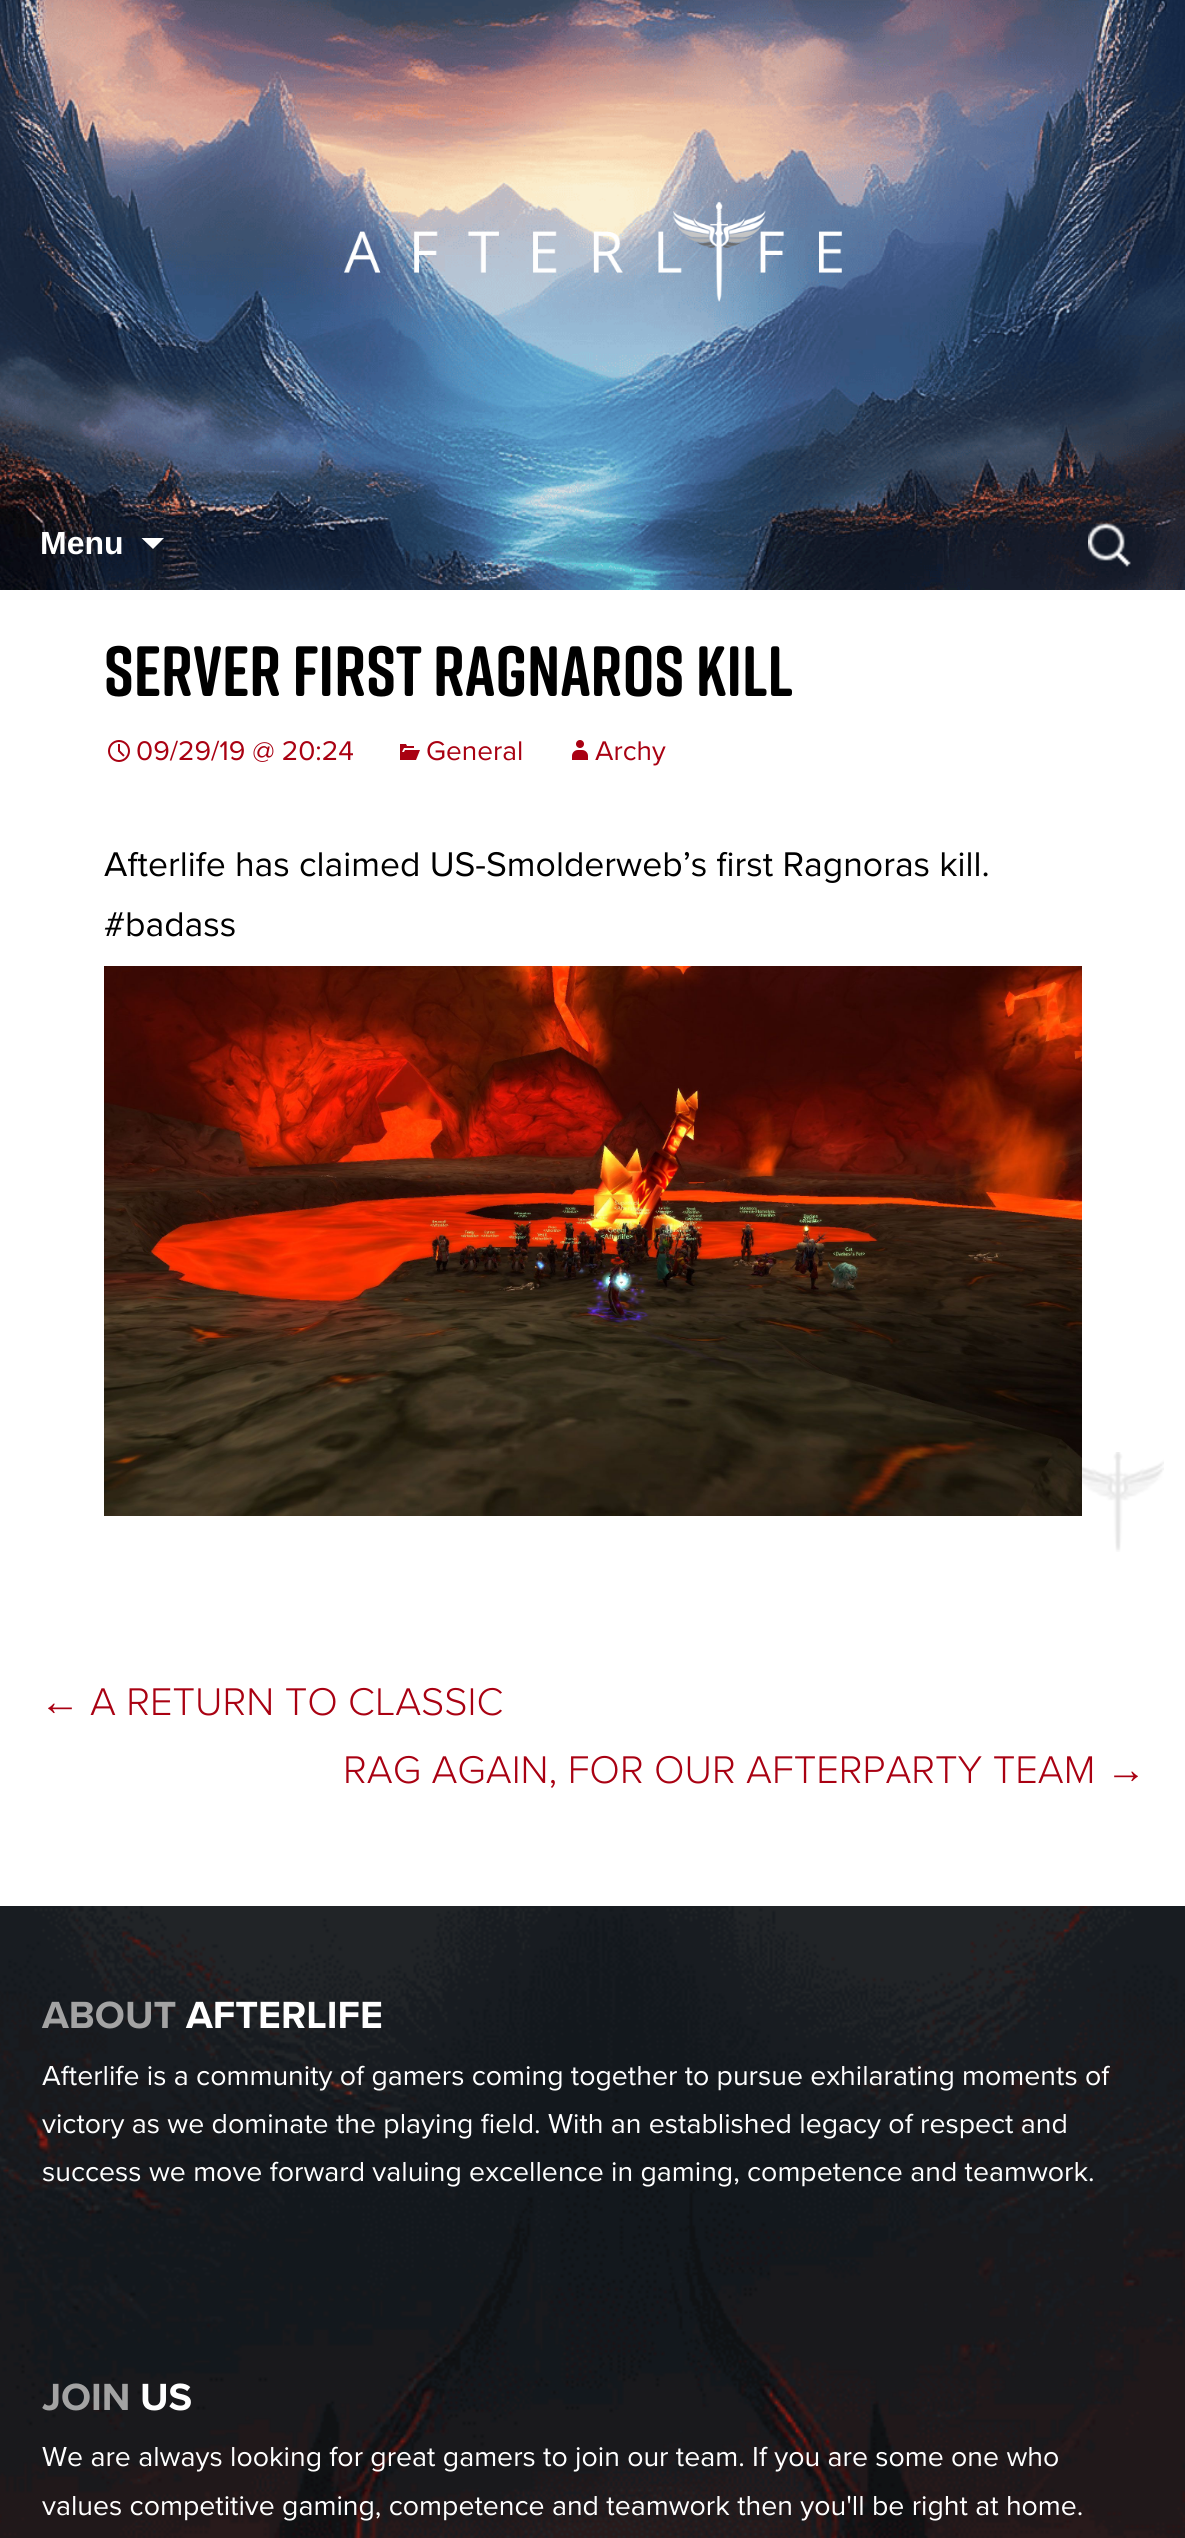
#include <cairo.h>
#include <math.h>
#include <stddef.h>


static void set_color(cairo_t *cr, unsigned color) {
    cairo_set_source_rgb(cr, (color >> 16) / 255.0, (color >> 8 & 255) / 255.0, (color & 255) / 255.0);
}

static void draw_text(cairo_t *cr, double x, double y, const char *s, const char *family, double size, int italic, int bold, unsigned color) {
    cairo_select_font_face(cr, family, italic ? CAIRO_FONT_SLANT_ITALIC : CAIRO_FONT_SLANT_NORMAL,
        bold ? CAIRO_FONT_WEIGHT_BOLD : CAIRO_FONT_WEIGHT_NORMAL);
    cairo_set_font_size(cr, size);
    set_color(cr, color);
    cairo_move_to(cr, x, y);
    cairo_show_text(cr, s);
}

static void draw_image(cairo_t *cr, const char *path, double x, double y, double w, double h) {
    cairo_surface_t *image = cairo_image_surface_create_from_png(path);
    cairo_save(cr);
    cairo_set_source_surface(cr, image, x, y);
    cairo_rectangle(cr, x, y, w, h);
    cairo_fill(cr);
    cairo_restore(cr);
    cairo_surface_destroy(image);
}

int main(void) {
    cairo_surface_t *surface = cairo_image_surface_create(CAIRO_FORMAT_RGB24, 1185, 2538);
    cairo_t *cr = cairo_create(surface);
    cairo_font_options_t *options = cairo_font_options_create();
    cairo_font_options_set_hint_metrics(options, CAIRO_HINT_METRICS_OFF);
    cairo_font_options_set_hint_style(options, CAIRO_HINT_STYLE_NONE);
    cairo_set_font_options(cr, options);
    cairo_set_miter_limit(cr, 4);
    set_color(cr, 0xFFFFFF);
    cairo_paint(cr);
    draw_image(cr, "assets/img1.png", 0, 0, 1185, 590);
    draw_image(cr, "assets/img2.png", 344, 201, 498, 101);
    draw_text(cr, 40, 554, "Menu", "Liberation Sans", 32, 0, 1, 0xFFFFFF);
    cairo_new_path(cr);
    cairo_move_to(cr, 141.5, 538);
    cairo_line_to(cr, 153, 549);
    cairo_line_to(cr, 164, 538);
    cairo_close_path(cr);
    cairo_fill(cr);
    draw_image(cr, "assets/img3.png", 1088, 523, 43, 44);
    draw_image(cr, "assets/img4.png", 1082, 1452, 82, 100);
    draw_text(cr, 104, 696, "Server First Ragnaros Kill", "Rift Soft", 71, 0, 1, 0x000000);
    draw_image(cr, "assets/img5.png", 108, 740, 22, 22);
    draw_text(cr, 136, 760, "09/29/19 @ 20:24", "Proxima Nova", 28, 0, 0, 0xA90112);
    draw_image(cr, "assets/img6.png", 400, 744, 20, 16);
    draw_text(cr, 426, 760, "General", "Proxima Nova", 28, 0, 0, 0xA90112);
    draw_image(cr, "assets/img7.png", 572, 740, 16, 20);
    draw_text(cr, 595, 760, "Archy", "Proxima Nova", 28, 0, 0, 0xA90112);
    draw_text(cr, 104, 876, "Afterlife has claimed US-Smolderweb’s first Ragnoras kill.", "Proxima Nova", 35.55, 0, 0, 0x000000);
    draw_text(cr, 104, 936, "#badass", "Proxima Nova", 35.55, 0, 0, 0x000000);
    draw_image(cr, "assets/img8.png", 104, 966, 978, 550);
    draw_text(cr, 40, 1715, "←", "Liberation Sans", 40, 0, 0, 0xA90112);
    draw_text(cr, 90, 1715, "A RETURN TO CLASSIC", "Proxima Nova Light", 40, 0, 0, 0xA90112);
    draw_text(cr, 343, 1783, "RAG AGAIN, FOR OUR AFTERPARTY TEAM", "Proxima Nova Light", 40, 0, 0, 0xA90112);
    draw_text(cr, 1106, 1783, "→", "Liberation Sans", 40, 0, 0, 0xA90112);
    draw_image(cr, "assets/img9.png", 0, 1906, 1185, 632);
    draw_text(cr, 42, 2028, "ABOUT", "Proxima Nova", 39.25, 0, 1, 0xA3A3A3);
    draw_text(cr, 186, 2028, "AFTERLIFE", "Proxima Nova", 39.25, 0, 1, 0xFFFFFF);
    draw_text(cr, 42, 2085, "Afterlife is a community of gamers coming together to pursue exhilarating moments of", "Proxima Nova", 28.45, 0, 0, 0xFFFFFF);
    draw_text(cr, 42, 2133, "victory as we dominate the playing field. With an established legacy of respect and", "Proxima Nova", 28.45, 0, 0, 0xFFFFFF);
    draw_text(cr, 42, 2181, "success we move forward valuing excellence in gaming, competence and teamwork.", "Proxima Nova", 28.45, 0, 0, 0xFFFFFF);
    draw_text(cr, 42, 2410, "JOIN", "Proxima Nova", 39.25, 0, 1, 0xA3A3A3);
    draw_text(cr, 140, 2410, "US", "Proxima Nova", 39.25, 0, 1, 0xFFFFFF);
    draw_text(cr, 42, 2466, "We are always looking for great gamers to join our team. If you are some one who", "Proxima Nova", 28.45, 0, 0, 0xFFFFFF);
    draw_text(cr, 42, 2515, "values competitive gaming, competence and teamwork then you'll be right at home.", "Proxima Nova", 28.45, 0, 0, 0xFFFFFF);
    cairo_surface_write_to_png(surface, "output.png");
    cairo_font_options_destroy(options);
    cairo_destroy(cr);
    cairo_surface_destroy(surface);
    return 0;
}
